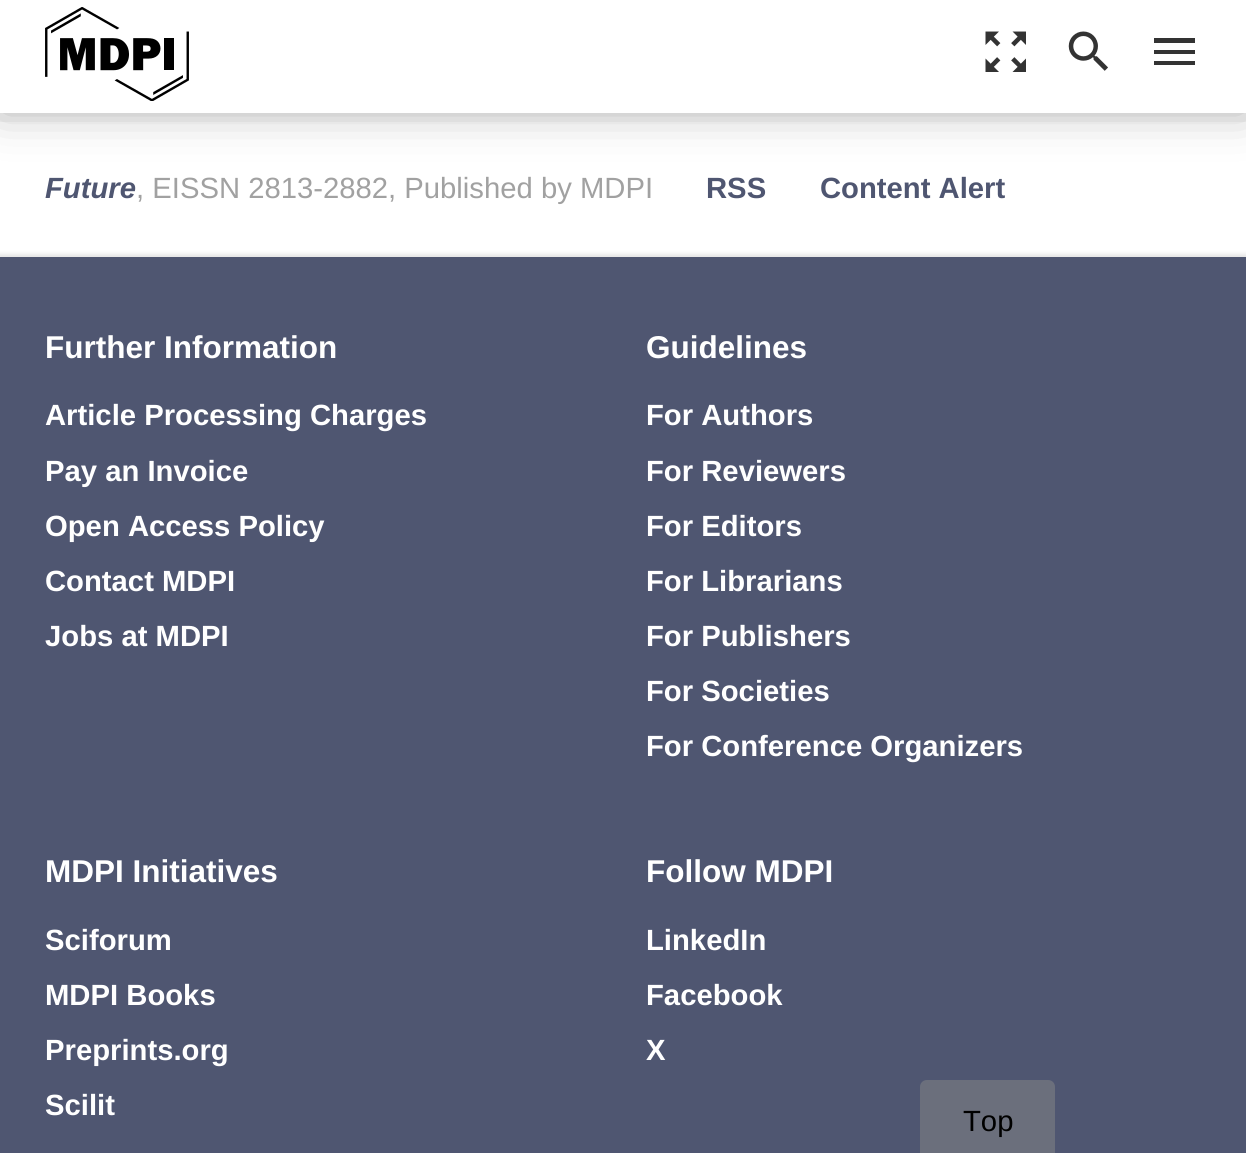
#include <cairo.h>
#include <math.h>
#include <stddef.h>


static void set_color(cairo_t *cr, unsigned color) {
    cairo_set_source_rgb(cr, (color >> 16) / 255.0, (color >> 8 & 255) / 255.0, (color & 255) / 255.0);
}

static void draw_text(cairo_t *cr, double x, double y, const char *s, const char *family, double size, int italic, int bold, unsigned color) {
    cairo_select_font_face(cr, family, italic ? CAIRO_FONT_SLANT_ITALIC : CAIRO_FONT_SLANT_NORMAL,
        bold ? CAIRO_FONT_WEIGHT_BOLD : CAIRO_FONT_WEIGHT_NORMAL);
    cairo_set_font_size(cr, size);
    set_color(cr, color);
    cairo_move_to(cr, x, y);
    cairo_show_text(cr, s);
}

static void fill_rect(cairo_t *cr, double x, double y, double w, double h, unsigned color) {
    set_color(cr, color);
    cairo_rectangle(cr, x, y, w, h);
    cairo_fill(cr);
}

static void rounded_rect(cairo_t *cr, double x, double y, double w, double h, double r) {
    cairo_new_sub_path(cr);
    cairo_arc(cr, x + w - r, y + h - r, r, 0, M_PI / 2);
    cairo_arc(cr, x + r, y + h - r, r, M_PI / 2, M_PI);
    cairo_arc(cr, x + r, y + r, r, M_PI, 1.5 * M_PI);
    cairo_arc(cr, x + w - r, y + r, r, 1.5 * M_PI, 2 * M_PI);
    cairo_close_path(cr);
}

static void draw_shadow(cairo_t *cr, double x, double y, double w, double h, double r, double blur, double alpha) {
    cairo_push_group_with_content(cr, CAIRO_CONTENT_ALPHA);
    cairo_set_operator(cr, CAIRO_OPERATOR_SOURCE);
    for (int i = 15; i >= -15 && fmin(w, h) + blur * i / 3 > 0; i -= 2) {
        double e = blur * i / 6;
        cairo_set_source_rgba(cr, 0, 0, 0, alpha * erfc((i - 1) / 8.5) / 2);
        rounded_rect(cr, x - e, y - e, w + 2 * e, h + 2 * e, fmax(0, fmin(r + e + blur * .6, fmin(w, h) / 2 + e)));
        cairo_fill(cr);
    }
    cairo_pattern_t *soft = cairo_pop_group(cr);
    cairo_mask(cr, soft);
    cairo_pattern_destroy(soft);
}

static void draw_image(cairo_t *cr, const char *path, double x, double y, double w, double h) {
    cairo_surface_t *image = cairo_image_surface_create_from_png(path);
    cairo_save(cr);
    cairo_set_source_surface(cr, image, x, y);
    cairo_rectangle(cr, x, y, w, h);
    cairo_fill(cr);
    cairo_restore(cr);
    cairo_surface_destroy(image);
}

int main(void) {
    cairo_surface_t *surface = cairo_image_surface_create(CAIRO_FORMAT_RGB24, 1246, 1153);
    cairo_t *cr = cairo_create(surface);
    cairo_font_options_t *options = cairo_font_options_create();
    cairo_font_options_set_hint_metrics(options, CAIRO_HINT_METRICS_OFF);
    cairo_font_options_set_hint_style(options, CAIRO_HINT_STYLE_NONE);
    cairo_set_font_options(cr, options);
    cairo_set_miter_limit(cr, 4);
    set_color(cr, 0xF5F5F5);
    cairo_paint(cr);
    fill_rect(cr, 0, 122, 1246, 135, 0xFFFFFF);
    set_color(cr, 0x000000);
    draw_shadow(cr, 0, 0, 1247, 113, 0, 22.5, 0.25);
    fill_rect(cr, 0, 0, 1246, 113, 0xFFFFFF);
    draw_image(cr, "assets/img1.png", 45, 7, 144, 94);
    draw_image(cr, "assets/img2.png", 985, 31, 41, 41);
    draw_image(cr, "assets/img3.png", 1068, 31, 40, 40);
    set_color(cr, 0x333333);
    cairo_new_path(cr);
    cairo_move_to(cr, 1154, 65);
    cairo_line_to(cr, 1195, 65);
    cairo_line_to(cr, 1195, 61);
    cairo_line_to(cr, 1154, 61);
    cairo_close_path(cr);
    cairo_move_to(cr, 1154, 54);
    cairo_line_to(cr, 1195, 54);
    cairo_line_to(cr, 1195, 50);
    cairo_line_to(cr, 1154, 50);
    cairo_close_path(cr);
    cairo_move_to(cr, 1154, 38);
    cairo_line_to(cr, 1154, 43);
    cairo_line_to(cr, 1195, 43);
    cairo_line_to(cr, 1195, 38);
    cairo_close_path(cr);
    cairo_fill(cr);
    draw_text(cr, 45, 198, "Future", "Liberation Sans", 29.25, 1, 1, 0x4F5671);
    draw_text(cr, 136, 198, ", EISSN 2813-2882, Published by MDPI", "Liberation Sans", 29.25, 0, 0, 0xA1A1A1);
    draw_text(cr, 706, 198, "RSS", "Liberation Sans", 29.25, 0, 1, 0x4F5671);
    draw_text(cr, 820, 198, "Content Alert", "Liberation Sans", 29.25, 0, 1, 0x4F5671);
    set_color(cr, 0xCCCCCC);
    draw_shadow(cr, -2, 254, 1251, 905, 0, 2, 0.5);
    fill_rect(cr, 0, 257, 1246, 896, 0x4F5671);
    draw_text(cr, 45, 358, "Further Information", "Liberation Sans", 31.5, 0, 1, 0xFFFFFF);
    draw_text(cr, 45, 425, "Article Processing Charges", "Liberation Sans", 29.25, 0, 1, 0xFFFFFF);
    draw_text(cr, 45, 481, "Pay an Invoice", "Liberation Sans", 29.25, 0, 1, 0xFFFFFF);
    draw_text(cr, 45, 536, "Open Access Policy", "Liberation Sans", 29.25, 0, 1, 0xFFFFFF);
    draw_text(cr, 45, 591, "Contact MDPI", "Liberation Sans", 29.25, 0, 1, 0xFFFFFF);
    draw_text(cr, 45, 646, "Jobs at MDPI", "Liberation Sans", 29.25, 0, 1, 0xFFFFFF);
    draw_text(cr, 646, 358, "Guidelines", "Liberation Sans", 31.5, 0, 1, 0xFFFFFF);
    draw_text(cr, 646, 425, "For Authors", "Liberation Sans", 29.25, 0, 1, 0xFFFFFF);
    draw_text(cr, 646, 481, "For Reviewers", "Liberation Sans", 29.25, 0, 1, 0xFFFFFF);
    draw_text(cr, 646, 536, "For Editors", "Liberation Sans", 29.25, 0, 1, 0xFFFFFF);
    draw_text(cr, 646, 591, "For Librarians", "Liberation Sans", 29.25, 0, 1, 0xFFFFFF);
    draw_text(cr, 646, 646, "For Publishers", "Liberation Sans", 29.25, 0, 1, 0xFFFFFF);
    draw_text(cr, 646, 701, "For Societies", "Liberation Sans", 29.25, 0, 1, 0xFFFFFF);
    draw_text(cr, 646, 756, "For Conference Organizers", "Liberation Sans", 29.25, 0, 1, 0xFFFFFF);
    draw_text(cr, 45, 882, "MDPI Initiatives", "Liberation Sans", 31.5, 0, 1, 0xFFFFFF);
    draw_text(cr, 45, 950, "Sciforum", "Liberation Sans", 29.25, 0, 1, 0xFFFFFF);
    draw_text(cr, 45, 1005, "MDPI Books", "Liberation Sans", 29.25, 0, 1, 0xFFFFFF);
    draw_text(cr, 45, 1060, "Preprints.org", "Liberation Sans", 29.25, 0, 1, 0xFFFFFF);
    draw_text(cr, 45, 1115, "Scilit", "Liberation Sans", 29.25, 0, 1, 0xFFFFFF);
    draw_text(cr, 646, 882, "Follow MDPI", "Liberation Sans", 31.5, 0, 1, 0xFFFFFF);
    draw_text(cr, 646, 950, "LinkedIn", "Liberation Sans", 29.25, 0, 1, 0xFFFFFF);
    draw_text(cr, 646, 1005, "Facebook", "Liberation Sans", 29.25, 0, 1, 0xFFFFFF);
    draw_text(cr, 646, 1060, "X", "Liberation Sans", 29.25, 0, 1, 0xFFFFFF);
    set_color(cr, 0x6B6F7C);
    cairo_new_path(cr);
    cairo_move_to(cr, 927, 1080);
    cairo_line_to(cr, 1048, 1080);
    cairo_curve_to(cr, 1052, 1080, 1055, 1083, 1055, 1087);
    cairo_line_to(cr, 1055, 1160);
    cairo_line_to(cr, 920, 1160);
    cairo_line_to(cr, 920, 1087);
    cairo_curve_to(cr, 920, 1083, 923, 1080, 927, 1080);
    cairo_close_path(cr);
    cairo_fill(cr);
    draw_text(cr, 963, 1131, "Top", "Liberation Sans", 29.25, 0, 0, 0x000000);
    cairo_surface_write_to_png(surface, "output.png");
    cairo_font_options_destroy(options);
    cairo_destroy(cr);
    cairo_surface_destroy(surface);
    return 0;
}
